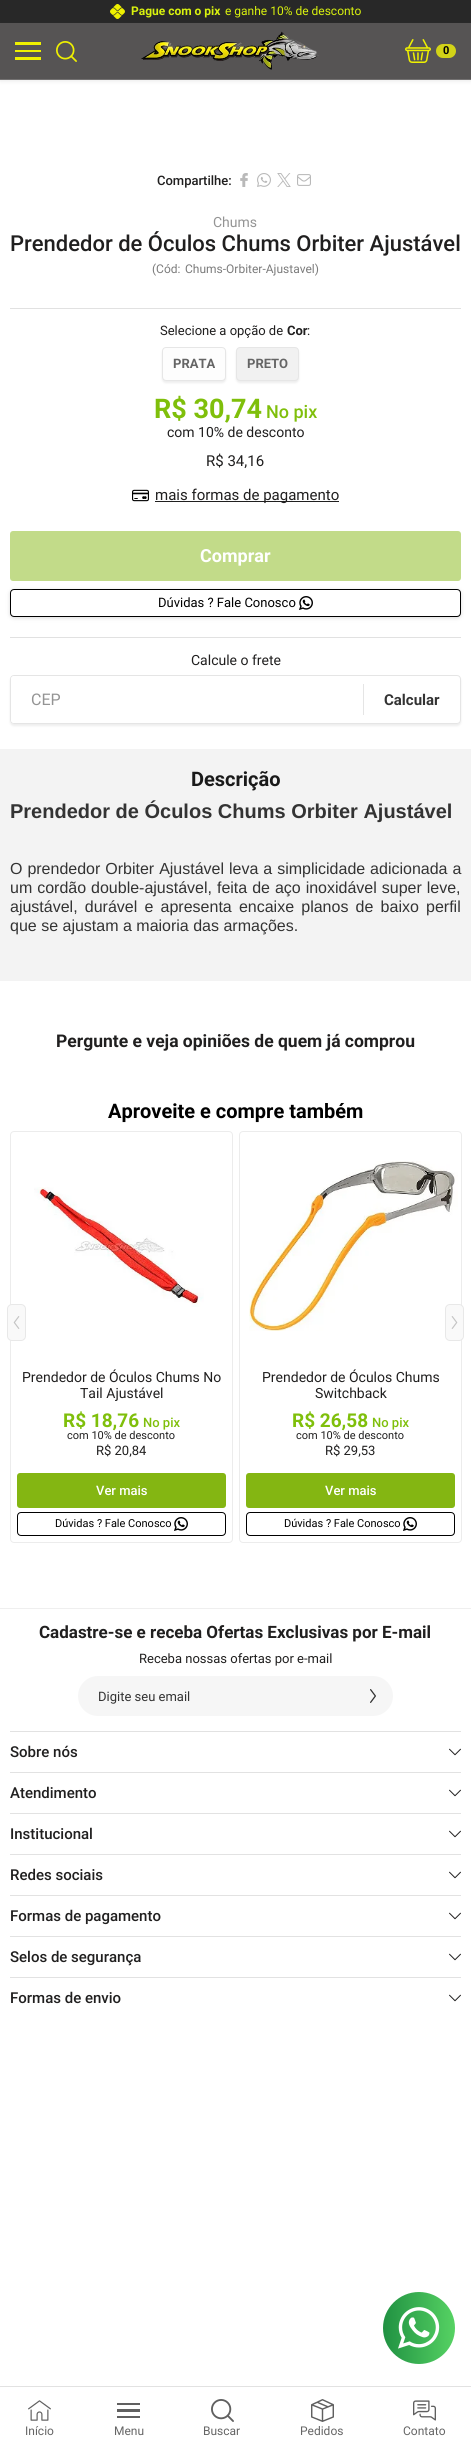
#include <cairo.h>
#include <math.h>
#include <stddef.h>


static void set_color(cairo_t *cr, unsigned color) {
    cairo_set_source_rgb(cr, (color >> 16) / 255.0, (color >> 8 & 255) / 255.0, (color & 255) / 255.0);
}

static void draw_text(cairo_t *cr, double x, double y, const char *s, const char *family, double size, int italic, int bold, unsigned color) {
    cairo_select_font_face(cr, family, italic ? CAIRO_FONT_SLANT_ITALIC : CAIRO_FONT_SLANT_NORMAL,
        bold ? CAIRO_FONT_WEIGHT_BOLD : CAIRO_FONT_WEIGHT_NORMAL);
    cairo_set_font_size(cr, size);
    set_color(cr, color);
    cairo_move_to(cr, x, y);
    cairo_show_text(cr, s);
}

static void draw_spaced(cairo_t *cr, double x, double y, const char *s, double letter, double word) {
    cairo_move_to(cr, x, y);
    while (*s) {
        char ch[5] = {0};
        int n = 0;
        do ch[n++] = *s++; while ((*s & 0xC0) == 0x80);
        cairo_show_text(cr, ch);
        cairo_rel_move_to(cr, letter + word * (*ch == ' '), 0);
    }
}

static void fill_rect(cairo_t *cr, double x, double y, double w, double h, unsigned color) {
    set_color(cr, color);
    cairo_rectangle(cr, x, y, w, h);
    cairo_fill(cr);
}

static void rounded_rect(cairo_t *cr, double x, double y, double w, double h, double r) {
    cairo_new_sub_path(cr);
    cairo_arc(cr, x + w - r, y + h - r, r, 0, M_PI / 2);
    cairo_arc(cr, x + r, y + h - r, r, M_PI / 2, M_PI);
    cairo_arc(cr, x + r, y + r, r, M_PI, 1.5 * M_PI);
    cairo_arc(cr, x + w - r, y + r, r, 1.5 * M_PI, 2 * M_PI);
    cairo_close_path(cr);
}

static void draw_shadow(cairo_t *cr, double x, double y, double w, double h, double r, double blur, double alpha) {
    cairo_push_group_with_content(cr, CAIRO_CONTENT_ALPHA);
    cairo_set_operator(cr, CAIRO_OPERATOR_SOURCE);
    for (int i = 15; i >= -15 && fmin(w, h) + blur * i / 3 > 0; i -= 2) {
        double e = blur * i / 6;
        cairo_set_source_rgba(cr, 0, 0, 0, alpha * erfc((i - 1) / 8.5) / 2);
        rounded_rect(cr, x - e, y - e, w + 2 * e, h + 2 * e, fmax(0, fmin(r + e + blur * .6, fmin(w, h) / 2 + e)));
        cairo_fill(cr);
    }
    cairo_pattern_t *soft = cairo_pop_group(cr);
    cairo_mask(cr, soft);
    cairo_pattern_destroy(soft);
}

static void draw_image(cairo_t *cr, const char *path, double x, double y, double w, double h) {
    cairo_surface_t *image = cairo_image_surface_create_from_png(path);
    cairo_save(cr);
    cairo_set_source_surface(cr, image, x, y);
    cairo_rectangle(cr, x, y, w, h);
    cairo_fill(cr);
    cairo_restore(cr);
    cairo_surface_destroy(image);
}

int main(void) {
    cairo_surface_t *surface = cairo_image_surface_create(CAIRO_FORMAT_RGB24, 471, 2456);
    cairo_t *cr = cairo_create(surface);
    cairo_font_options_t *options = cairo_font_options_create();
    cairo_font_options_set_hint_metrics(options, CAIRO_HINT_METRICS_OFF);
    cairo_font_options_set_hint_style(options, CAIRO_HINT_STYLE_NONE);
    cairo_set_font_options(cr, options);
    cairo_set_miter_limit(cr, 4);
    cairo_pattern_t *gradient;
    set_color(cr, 0xFFFFFF);
    cairo_paint(cr);
    fill_rect(cr, 0, 0, 471, 23, 0x282828);
    draw_image(cr, "assets/img1.png", 110, 4, 15, 15);
    draw_text(cr, 131, 15, "Pague com o pix", "Roboto", 12, 0, 1, 0xD9F20E);
    draw_text(cr, 225, 15, "e ganhe 10% de desconto", "Roboto", 12, 0, 0, 0xD9F20E);
    set_color(cr, 0x525252);
    draw_shadow(cr, 0, 24, 471, 57, 0, 2, 0.13);
    fill_rect(cr, 0, 23, 471, 56, 0x565454);
    fill_rect(cr, 0, 79, 471, 1, 0x737171);
    fill_rect(cr, 15, 57, 26, 3, 0xEFF100);
    fill_rect(cr, 15, 50, 26, 2, 0xEFF100);
    fill_rect(cr, 15, 42, 26, 3, 0xEFF100);
    draw_image(cr, "assets/img2.png", 56, 41, 21, 21);
    draw_image(cr, "assets/img3.png", 141, 31, 178, 39);
    draw_image(cr, "assets/img4.png", 405, 39, 26, 24);
    set_color(cr, 0xD2D317);
    rounded_rect(cr, 436, 44, 20, 14, 7);
    cairo_fill(cr);
    draw_text(cr, 443, 54, "0", "Roboto", 11, 0, 1, 0x000000);
    draw_text(cr, 157, 185, "Compartilhe:", "Roboto Medium", 13, 0, 0, 0x201F1F);
    draw_image(cr, "assets/img5.png", 240, 173, 8, 14);
    draw_image(cr, "assets/img6.png", 257, 173, 14, 14);
    draw_image(cr, "assets/img7.png", 277, 173, 14, 14);
    draw_image(cr, "assets/img8.png", 297, 174, 14, 12);
    fill_rect(cr, 10, 308, 451, 1, 0xE1E1E1);
    draw_text(cr, 213, 227, "Chums", "Roboto", 14, 0, 0, 0x949494);
    draw_text(cr, 10, 251, "Prendedor de Óculos Chums Orbiter Ajustável", "Roboto Medium", 22, 0, 0, 0x201F1F);
    draw_text(cr, 152, 273, "(Cód:", "Roboto", 12, 0, 0, 0x7B7B7B);
    draw_text(cr, 185, 273, "Chums-Orbiter-Ajustavel)", "Roboto", 12, 0, 0, 0x7B7B7B);
    draw_text(cr, 160, 335, "Selecione a opção de", "Roboto", 13, 0, 0, 0x201F1F);
    draw_text(cr, 287, 335, "Cor", "Roboto", 13, 0, 1, 0x201F1F);
    draw_text(cr, 307, 335, ":", "Roboto", 13, 0, 0, 0x201F1F);
    set_color(cr, 0xCDCDCD);
    draw_shadow(cr, 162, 349, 64, 34, 4, 1, 0.35);
    set_color(cr, 0xFDFDFD);
    rounded_rect(cr, 162.5, 347.5, 63, 33, 3.5);
    cairo_fill_preserve(cr);
    set_color(cr, 0xE6E6E6);
    cairo_set_line_width(cr, 1);
    cairo_stroke(cr);
    draw_text(cr, 173, 368, "PRATA", "Roboto", 13, 0, 1, 0x656565);
    set_color(cr, 0xCDCDCD);
    draw_shadow(cr, 236, 349, 63, 34, 4, 1, 0.35);
    set_color(cr, 0xF1F1F1);
    rounded_rect(cr, 236.5, 347.5, 62, 33, 3.5);
    cairo_fill_preserve(cr);
    set_color(cr, 0xE6E6E6);
    cairo_stroke(cr);
    draw_text(cr, 247, 368, "PRETO", "Roboto", 13, 0, 1, 0x656565);
    draw_text(cr, 154, 418, "R$ 30,74", "Roboto", 27, 0, 1, 0x7FBF0B);
    draw_text(cr, 266, 418, "No pix", "Roboto Medium", 18, 0, 0, 0x7FBF0B);
    draw_text(cr, 167, 437, "com 10% de desconto", "Roboto", 14, 0, 0, 0x201F1F);
    draw_text(cr, 206, 466, "R$ 34,16", "Roboto", 15, 0, 0, 0x201F1F);
    draw_image(cr, "assets/img9.png", 132, 489, 17, 13);
    fill_rect(cr, 155, 501, 184, 1, 0x201F1F);
    draw_text(cr, 155, 500, "mais formas de pagamento", "Roboto", 15, 0, 0, 0x201F1F);
    set_color(cr, 0xC2DB89);
    rounded_rect(cr, 10, 531, 451, 50, 3);
    cairo_fill(cr);
    draw_text(cr, 200, 562, "Comprar", "Roboto", 18, 0, 1, 0xFFFFFF);
    set_color(cr, 0xB1B1B1);
    draw_shadow(cr, 10, 590, 451, 28, 4, 2, 0.46);
    set_color(cr, 0xFFFFFF);
    rounded_rect(cr, 10.5, 589.5, 450, 27, 3.5);
    cairo_fill_preserve(cr);
    set_color(cr, 0x000000);
    cairo_stroke(cr);
    draw_text(cr, 158, 607, "Dúvidas ? Fale Conosco", "Roboto", 13, 0, 0, 0x000000);
    draw_image(cr, "assets/img10.png", 299, 596, 14, 14);
    fill_rect(cr, 10, 637, 451, 1, 0xE1E1E1);
    draw_text(cr, 191, 665, "Calcule o frete", "Roboto", 14, 0, 0, 0x201F1F);
    cairo_save(cr);
    cairo_set_fill_rule(cr, CAIRO_FILL_RULE_EVEN_ODD);
    cairo_new_path(cr);
    cairo_move_to(cr, 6, 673);
    cairo_line_to(cr, 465, 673);
    cairo_line_to(cr, 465, 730);
    cairo_line_to(cr, 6, 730);
    cairo_close_path(cr);
    cairo_move_to(cr, 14, 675);
    cairo_line_to(cr, 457, 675);
    cairo_curve_to(cr, 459, 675, 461, 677, 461, 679);
    cairo_line_to(cr, 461, 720);
    cairo_curve_to(cr, 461, 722, 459, 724, 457, 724);
    cairo_line_to(cr, 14, 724);
    cairo_curve_to(cr, 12, 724, 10, 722, 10, 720);
    cairo_line_to(cr, 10, 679);
    cairo_curve_to(cr, 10, 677, 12, 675, 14, 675);
    cairo_close_path(cr);
    cairo_clip(cr);
    set_color(cr, 0xCDCDCD);
    draw_shadow(cr, 10, 677, 451, 49, 4, 1, 0.35);
    cairo_restore(cr);
    rounded_rect(cr, 10.5, 675.5, 450, 48, 3.5);
    set_color(cr, 0xE5E5E5);
    cairo_stroke(cr);
    set_color(cr, 0xFFFFFF);
    rounded_rect(cr, 11, 676, 352, 47, 3);
    cairo_fill(cr);
    draw_text(cr, 31, 705, "CEP", "Roboto", 16, 0, 0, 0x949494);
    fill_rect(cr, 363, 684, 1, 31, 0xE5E5E5);
    draw_text(cr, 384, 705, "Calcular", "Roboto", 15, 0, 1, 0x333333);
    fill_rect(cr, 0, 749, 471, 232, 0xF3F3F3);
    draw_text(cr, 191, 786, "Descrição", "Roboto", 20, 0, 1, 0x1A1A1A);
    draw_text(cr, 10, 818, "Prendedor de Óculos Chums Orbiter Ajustável", "Liberation Sans", 20, 0, 1, 0x333333);
    cairo_select_font_face(cr, "Liberation Sans", CAIRO_FONT_SLANT_NORMAL, CAIRO_FONT_WEIGHT_NORMAL);
    cairo_set_font_size(cr, 16);
    draw_spaced(cr, 10, 874, "O prendedor Orbiter Ajustável leva a simplicidade adicionada a", 0, 0.5);
    draw_spaced(cr, 10, 893, "um cordão double-ajustável, feita de aço inoxidável super leve,", 0, 0.5);
    draw_spaced(cr, 10, 912, "ajustável, durável e apresenta encaixe planos de baixo perfil", 0, 2.75);
    draw_text(cr, 10, 931, "que se ajustam a maioria das armações.", "Liberation Sans", 16, 0, 0, 0x333333);
    draw_text(cr, 56, 1047, "Pergunte e veja opiniões de quem já comprou", "Roboto", 17.5, 0, 1, 0x201F1F);
    draw_text(cr, 108, 1118, "Aproveite e compre também", "Roboto", 20, 0, 1, 0x000000);
    rounded_rect(cr, 10.5, 1131.5, 222, 411, 3.5);
    set_color(cr, 0xECECEC);
    cairo_stroke(cr);
    set_color(cr, 0xF9F9F9);
    rounded_rect(cr, 7.5, 1304.5, 18, 36, 4.5);
    cairo_fill_preserve(cr);
    set_color(cr, 0xE8E8E8);
    cairo_stroke(cr);
    draw_image(cr, "assets/img11.png", 13, 1316, 7, 13);
    rounded_rect(cr, 239.5, 1131.5, 222, 411, 3.5);
    set_color(cr, 0xECECEC);
    cairo_stroke(cr);
    draw_image(cr, "assets/img14.png", 249, 1161, 209, 170);
    set_color(cr, 0xF9F9F9);
    rounded_rect(cr, 445.5, 1304.5, 18, 36, 4.5);
    cairo_fill_preserve(cr);
    set_color(cr, 0xE8E8E8);
    cairo_stroke(cr);
    draw_image(cr, "assets/img12.png", 451, 1316, 7, 13);
    draw_image(cr, "assets/img13.png", 34, 1187, 170, 120);
    draw_text(cr, 22, 1382, "Prendedor de Óculos Chums No", "Roboto", 14, 0, 0, 0x201F1F);
    draw_text(cr, 80, 1398, "Tail Ajustável", "Roboto", 14, 0, 0, 0x201F1F);
    draw_text(cr, 63, 1427, "R$ 18,76", "Roboto", 19, 0, 1, 0x7FBF0B);
    draw_text(cr, 143, 1427, "No pix", "Roboto Medium", 13, 0, 0, 0x7FBF0B);
    draw_text(cr, 67, 1439, "com 10% de desconto", "Roboto", 11, 0, 0, 0x201F1F);
    draw_text(cr, 96, 1455, "R$ 20,84", "Roboto", 13, 0, 0, 0x201F1F);
    set_color(cr, 0x84B612);
    rounded_rect(cr, 17, 1473, 209, 35, 3);
    cairo_fill(cr);
    draw_text(cr, 96, 1495, "Ver mais", "Roboto Medium", 13, 0, 0, 0xFFFFFF);
    rounded_rect(cr, 17.5, 1512.5, 208, 23, 3.5);
    set_color(cr, 0x000000);
    cairo_stroke(cr);
    draw_text(cr, 55, 1527, "Dúvidas ? Fale Conosco", "Roboto", 11, 0, 0, 0x000000);
    draw_image(cr, "assets/img10.png", 174, 1517, 14, 14);
    draw_text(cr, 262, 1382, "Prendedor de Óculos Chums", "Roboto", 14, 0, 0, 0x201F1F);
    draw_text(cr, 315, 1398, "Switchback", "Roboto", 14, 0, 0, 0x201F1F);
    draw_text(cr, 292, 1427, "R$ 26,58", "Roboto", 19, 0, 1, 0x7FBF0B);
    draw_text(cr, 372, 1427, "No pix", "Roboto Medium", 13, 0, 0, 0x7FBF0B);
    draw_text(cr, 296, 1439, "com 10% de desconto", "Roboto", 11, 0, 0, 0x201F1F);
    draw_text(cr, 325, 1455, "R$ 29,53", "Roboto", 13, 0, 0, 0x201F1F);
    set_color(cr, 0x84B612);
    rounded_rect(cr, 246, 1473, 209, 35, 3);
    cairo_fill(cr);
    draw_text(cr, 325, 1495, "Ver mais", "Roboto Medium", 13, 0, 0, 0xFFFFFF);
    rounded_rect(cr, 246.5, 1512.5, 208, 23, 3.5);
    set_color(cr, 0x000000);
    cairo_stroke(cr);
    draw_text(cr, 284, 1527, "Dúvidas ? Fale Conosco", "Roboto", 11, 0, 0, 0x000000);
    draw_image(cr, "assets/img10.png", 403, 1517, 14, 14);
    fill_rect(cr, 0, 1608, 471, 1, 0xEFEFEF);
    draw_text(cr, 39, 1638, "Cadastre-se e receba Ofertas Exclusivas por E-mail", "Roboto", 17, 0, 1, 0x201F1F);
    draw_text(cr, 139, 1663, "Receba nossas ofertas por e-mail", "Roboto", 13, 0, 0, 0x201F1F);
    set_color(cr, 0xF6F6F6);
    rounded_rect(cr, 78, 1676, 315, 40, 20);
    cairo_fill(cr);
    draw_text(cr, 98, 1701, "Digite seu email", "Roboto", 13, 0, 0, 0x333333);
    draw_image(cr, "assets/img15.png", 370, 1689, 6, 14);
    fill_rect(cr, 10, 1731, 451, 1, 0xE2E2E2);
    draw_text(cr, 10, 1757, "Sobre nós", "Roboto Medium", 15, 0, 0, 0x201F1F);
    draw_image(cr, "assets/img16.png", 449, 1748, 12, 8);
    fill_rect(cr, 10, 1772, 451, 1, 0xE2E2E2);
    draw_text(cr, 10, 1798, "Atendimento", "Roboto Medium", 15, 0, 0, 0x201F1F);
    draw_image(cr, "assets/img16.png", 449, 1789, 12, 8);
    fill_rect(cr, 10, 1813, 451, 1, 0xE2E2E2);
    draw_text(cr, 10, 1839, "Institucional", "Roboto Medium", 15, 0, 0, 0x201F1F);
    draw_image(cr, "assets/img16.png", 449, 1830, 12, 8);
    fill_rect(cr, 10, 1854, 451, 1, 0xE2E2E2);
    draw_text(cr, 10, 1880, "Redes sociais", "Roboto Medium", 15, 0, 0, 0x201F1F);
    draw_image(cr, "assets/img16.png", 449, 1871, 12, 8);
    fill_rect(cr, 10, 1895, 451, 1, 0xE2E2E2);
    draw_text(cr, 10, 1921, "Formas de pagamento", "Roboto Medium", 15, 0, 0, 0x201F1F);
    draw_image(cr, "assets/img16.png", 449, 1912, 12, 8);
    fill_rect(cr, 10, 1936, 451, 1, 0xE2E2E2);
    draw_text(cr, 10, 1962, "Selos de segurança", "Roboto Medium", 15, 0, 0, 0x201F1F);
    draw_image(cr, "assets/img16.png", 449, 1953, 12, 8);
    fill_rect(cr, 10, 1977, 451, 1, 0xE2E2E2);
    draw_text(cr, 10, 2003, "Formas de envio", "Roboto Medium", 15, 0, 0, 0x201F1F);
    draw_image(cr, "assets/img16.png", 449, 1994, 12, 8);
    gradient = cairo_pattern_create_linear(383, 2328, 455, 2328);
    cairo_pattern_add_color_stop_rgba(gradient, 0, 0.125, 0.569, 0.259, 1);
    cairo_pattern_add_color_stop_rgba(gradient, 1, 0.337, 0.824, 0.388, 1);
    cairo_set_source(cr, gradient);
    cairo_pattern_destroy(gradient);
    cairo_arc(cr, 419, 2328, 36, 0, 2 * M_PI);
    cairo_fill(cr);
    draw_image(cr, "assets/img17.png", 398, 2307, 42, 42);
    fill_rect(cr, 0, 2386, 471, 1, 0xE2E2E2);
    draw_image(cr, "assets/img18.png", 28, 2400, 23, 21);
    draw_text(cr, 25, 2435, "Início", "Roboto", 12, 0, 0, 0x656565);
    fill_rect(cr, 117, 2416, 23, 2, 0x606060);
    fill_rect(cr, 117, 2409, 23, 3, 0x606060);
    fill_rect(cr, 117, 2403, 23, 2, 0x606060);
    draw_text(cr, 114, 2435, "Menu", "Roboto", 12, 0, 0, 0x656565);
    draw_image(cr, "assets/img19.png", 211, 2399, 23, 23);
    draw_text(cr, 203, 2435, "Buscar", "Roboto", 12, 0, 0, 0x656565);
    draw_image(cr, "assets/img20.png", 311, 2399, 23, 23);
    draw_text(cr, 300, 2435, "Pedidos", "Roboto", 12, 0, 0, 0x656565);
    draw_image(cr, "assets/img21.png", 413, 2400, 23, 21);
    draw_text(cr, 403, 2435, "Contato", "Roboto", 12, 0, 0, 0x656565);
    cairo_surface_write_to_png(surface, "output.png");
    cairo_font_options_destroy(options);
    cairo_destroy(cr);
    cairo_surface_destroy(surface);
    return 0;
}
